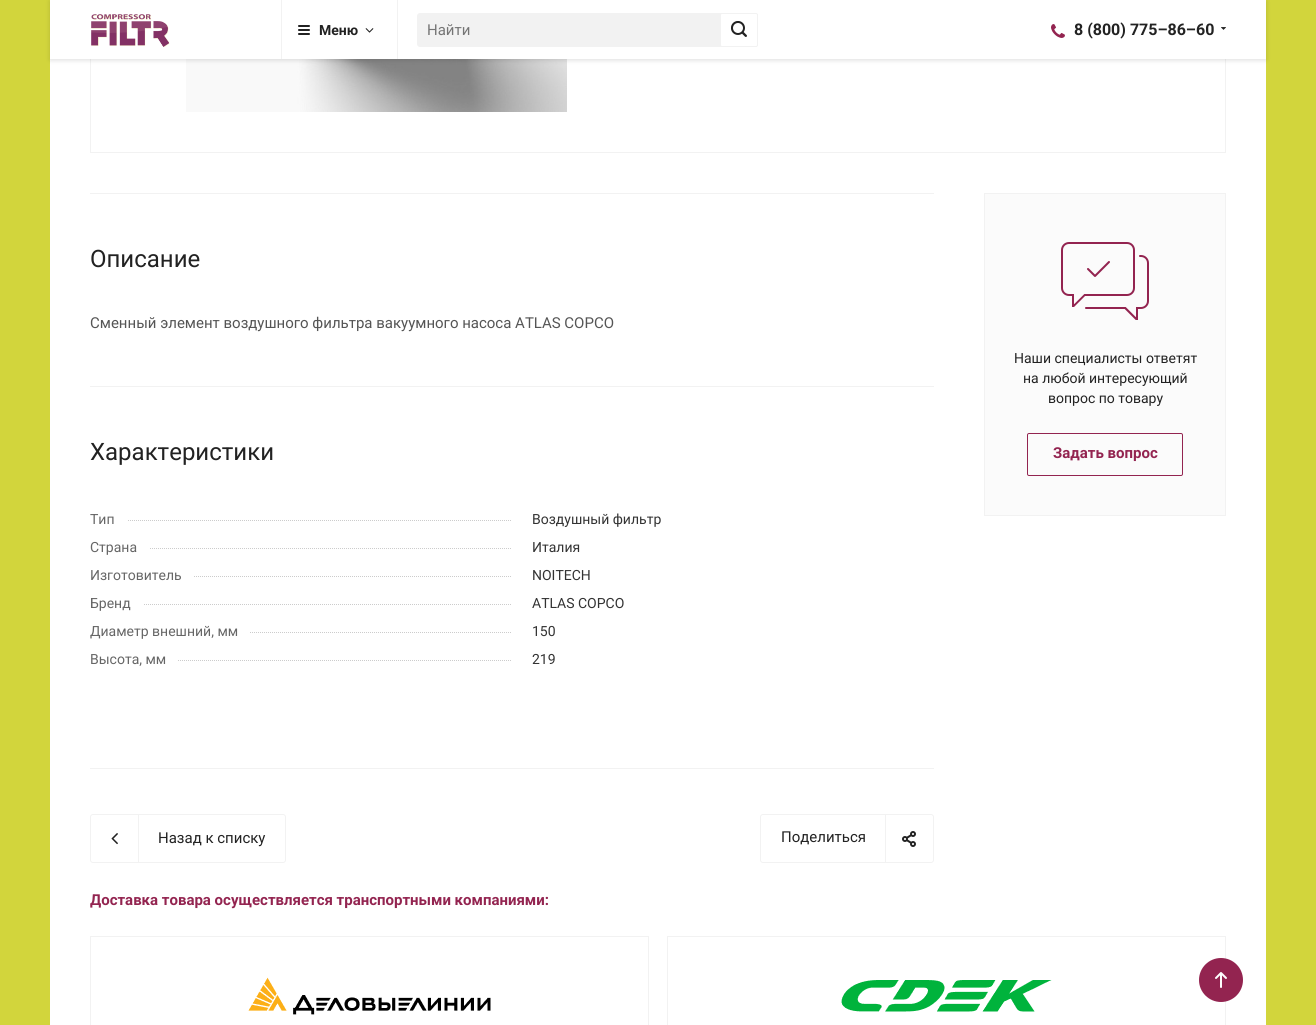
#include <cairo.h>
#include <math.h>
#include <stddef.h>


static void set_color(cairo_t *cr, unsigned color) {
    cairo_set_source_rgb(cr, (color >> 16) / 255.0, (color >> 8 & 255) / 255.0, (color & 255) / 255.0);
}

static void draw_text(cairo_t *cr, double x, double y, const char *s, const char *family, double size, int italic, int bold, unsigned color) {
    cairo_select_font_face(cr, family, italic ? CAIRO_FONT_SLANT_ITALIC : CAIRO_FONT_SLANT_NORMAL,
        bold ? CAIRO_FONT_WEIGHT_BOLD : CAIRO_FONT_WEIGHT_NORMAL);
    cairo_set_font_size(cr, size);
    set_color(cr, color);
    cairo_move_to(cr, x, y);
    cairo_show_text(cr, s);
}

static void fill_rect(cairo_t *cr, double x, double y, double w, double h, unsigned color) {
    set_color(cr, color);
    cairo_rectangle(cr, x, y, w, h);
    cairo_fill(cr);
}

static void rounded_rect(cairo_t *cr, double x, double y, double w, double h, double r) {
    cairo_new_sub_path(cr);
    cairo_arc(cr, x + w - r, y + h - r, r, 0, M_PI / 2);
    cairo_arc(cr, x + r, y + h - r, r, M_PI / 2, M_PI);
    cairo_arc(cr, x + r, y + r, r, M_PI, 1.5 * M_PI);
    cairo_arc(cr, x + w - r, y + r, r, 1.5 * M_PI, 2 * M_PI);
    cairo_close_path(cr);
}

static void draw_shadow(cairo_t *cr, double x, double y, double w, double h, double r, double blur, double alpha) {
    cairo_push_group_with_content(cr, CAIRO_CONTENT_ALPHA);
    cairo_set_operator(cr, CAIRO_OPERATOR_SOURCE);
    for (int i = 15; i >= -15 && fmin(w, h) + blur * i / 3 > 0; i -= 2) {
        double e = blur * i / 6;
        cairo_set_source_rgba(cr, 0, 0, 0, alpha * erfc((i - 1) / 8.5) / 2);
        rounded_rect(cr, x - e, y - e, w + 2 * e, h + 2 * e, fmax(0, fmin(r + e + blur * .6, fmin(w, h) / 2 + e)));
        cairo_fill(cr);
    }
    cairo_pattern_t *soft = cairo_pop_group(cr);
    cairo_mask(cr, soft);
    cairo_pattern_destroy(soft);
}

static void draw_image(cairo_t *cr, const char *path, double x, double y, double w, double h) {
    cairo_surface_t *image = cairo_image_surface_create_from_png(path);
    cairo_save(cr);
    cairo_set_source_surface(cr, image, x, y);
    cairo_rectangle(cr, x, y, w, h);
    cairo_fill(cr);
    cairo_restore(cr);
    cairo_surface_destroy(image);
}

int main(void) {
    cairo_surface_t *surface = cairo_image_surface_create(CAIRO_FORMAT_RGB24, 1316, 1025);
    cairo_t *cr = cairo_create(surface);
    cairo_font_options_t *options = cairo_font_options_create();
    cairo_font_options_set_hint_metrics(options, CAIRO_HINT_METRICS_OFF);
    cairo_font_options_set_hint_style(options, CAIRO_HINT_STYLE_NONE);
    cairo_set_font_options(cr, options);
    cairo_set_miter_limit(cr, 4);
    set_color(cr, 0xD2D53C);
    cairo_paint(cr);
    fill_rect(cr, 50, 59, 1216, 966, 0xFFFFFF);
    cairo_rectangle(cr, 90.5, -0.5, 1135, 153);
    set_color(cr, 0xF2F2F2);
    cairo_set_line_width(cr, 1);
    cairo_stroke(cr);
    draw_image(cr, "assets/img7.png", 186, 59, 381, 53);
    set_color(cr, 0x000000);
    draw_shadow(cr, 50, 1, 1216, 59, 0, 2.5, 0.14);
    fill_rect(cr, 50, 0, 1216, 59, 0xFFFFFF);
    fill_rect(cr, 281, 0, 1, 59, 0xF2F2F2);
    draw_image(cr, "assets/img1.png", 91, 14, 79, 33);
    fill_rect(cr, 397, 0, 1, 59, 0xF2F2F2);
    draw_image(cr, "assets/img2.png", 298, 25, 12, 10);
    draw_text(cr, 319, 35, "Меню", "Roboto", 14, 0, 1, 0x222222);
    draw_image(cr, "assets/img3.png", 365, 28, 9, 5);
    set_color(cr, 0xF2F2F2);
    rounded_rect(cr, 417, 13, 341, 34, 3);
    cairo_fill(cr);
    draw_text(cr, 427, 35, "Найти", "Roboto", 15, 0, 0, 0x757575);
    set_color(cr, 0xFFFFFF);
    rounded_rect(cr, 720.5, 13.5, 37, 33, 1.5);
    cairo_fill_preserve(cr);
    set_color(cr, 0xF2F2F2);
    cairo_stroke(cr);
    draw_image(cr, "assets/img4.png", 731, 21, 16, 16);
    draw_image(cr, "assets/img5.png", 1051, 24, 14, 14);
    draw_text(cr, 1074, 35, "8 (800) 775–86–60", "Roboto", 16, 0, 1, 0x222222);
    draw_image(cr, "assets/img6.png", 1221, 27, 5, 3);
    fill_rect(cr, 90, 193, 844, 1, 0xF2F2F2);
    draw_text(cr, 90, 267, "Описание", "Roboto", 24, 0, 0, 0x222222);
    draw_text(cr, 90, 328, "Сменный элемент воздушного фильтра вакуумного насоса ATLAS COPCO", "Roboto", 15, 0, 0, 0x555555);
    fill_rect(cr, 90, 386, 844, 1, 0xF2F2F2);
    draw_text(cr, 90, 460, "Характеристики", "Roboto", 24, 0, 0, 0x222222);
    draw_image(cr, "assets/img8.png", 128, 520, 383, 1);
    draw_text(cr, 90, 524, "Тип", "Roboto", 14, 0, 0, 0x666666);
    draw_text(cr, 532, 524, "Воздушный фильтр", "Roboto", 14, 0, 0, 0x333333);
    draw_image(cr, "assets/img9.png", 150, 548, 361, 1);
    draw_text(cr, 90, 552, "Страна", "Roboto", 14, 0, 0, 0x666666);
    draw_text(cr, 532, 552, "Италия", "Roboto", 14, 0, 0, 0x333333);
    draw_image(cr, "assets/img10.png", 194, 576, 317, 1);
    draw_text(cr, 90, 580, "Изготовитель", "Roboto", 14, 0, 0, 0x666666);
    draw_text(cr, 532, 580, "NOITECH", "Roboto", 14, 0, 0, 0x333333);
    draw_image(cr, "assets/img11.png", 144, 604, 367, 1);
    draw_text(cr, 90, 608, "Бренд", "Roboto", 14, 0, 0, 0x666666);
    draw_text(cr, 532, 608, "ATLAS COPCO", "Roboto", 14, 0, 0, 0x333333);
    draw_image(cr, "assets/img12.png", 250, 632, 261, 1);
    draw_text(cr, 90, 636, "Диаметр внешний, мм", "Roboto", 14, 0, 0, 0x666666);
    draw_text(cr, 532, 636, "150", "Roboto", 14, 0, 0, 0x333333);
    draw_image(cr, "assets/img13.png", 178, 660, 333, 1);
    draw_text(cr, 90, 664, "Высота, мм", "Roboto", 14, 0, 0, 0x666666);
    draw_text(cr, 532, 664, "219", "Roboto", 14, 0, 0, 0x333333);
    set_color(cr, 0xFBFBFB);
    cairo_rectangle(cr, 984.5, 193.5, 241, 322);
    cairo_fill_preserve(cr);
    set_color(cr, 0xF2F2F2);
    cairo_stroke(cr);
    draw_image(cr, "assets/img14.png", 1061, 242, 88, 78);
    draw_text(cr, 1014, 363, "Наши специалисты ответят", "Roboto", 14, 0, 0, 0x222222);
    draw_text(cr, 1023, 383, "на любой интересующий", "Roboto", 14, 0, 0, 0x222222);
    draw_text(cr, 1048, 403, "вопрос по товару", "Roboto", 14, 0, 0, 0x222222);
    rounded_rect(cr, 1027.5, 433.5, 155, 42, 1.5);
    set_color(cr, 0x932450);
    cairo_stroke(cr);
    draw_text(cr, 1053, 458, "Задать вопрос", "Roboto", 15, 0, 1, 0x932450);
    fill_rect(cr, 90, 768, 844, 1, 0xF2F2F2);
    rounded_rect(cr, 90.5, 814.5, 195, 48, 2.5);
    cairo_stroke(cr);
    draw_image(cr, "assets/img15.png", 111, 833, 7, 12);
    fill_rect(cr, 138, 815, 1, 47, 0xF2F2F2);
    draw_text(cr, 158, 843, "Назад к списку", "Roboto", 15, 0, 0, 0x222222);
    rounded_rect(cr, 760.5, 814.5, 173, 48, 2.5);
    set_color(cr, 0xF2F2F2);
    cairo_stroke(cr);
    draw_text(cr, 781, 842, "Поделиться", "Roboto", 15, 0, 0, 0x222222);
    fill_rect(cr, 885, 815, 1, 47, 0xF2F2F2);
    draw_image(cr, "assets/img16.png", 902, 831, 14, 16);
    draw_text(cr, 90, 905, "Доставка товара осуществляется транспортными компаниями:", "Roboto", 15, 0, 1, 0x932450);
    cairo_rectangle(cr, 90.5, 936.5, 558, 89);
    set_color(cr, 0xF2F2F2);
    cairo_stroke(cr);
    draw_image(cr, "assets/img17.png", 248, 977, 243, 38);
    cairo_rectangle(cr, 667.5, 936.5, 558, 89);
    cairo_stroke(cr);
    draw_image(cr, "assets/img18.png", 841, 980, 211, 32);
    set_color(cr, 0x932450);
    cairo_arc(cr, 1221, 980, 22, 0, 2 * M_PI);
    cairo_fill(cr);
    draw_image(cr, "assets/img19.png", 1215, 972, 12, 16);
    cairo_surface_write_to_png(surface, "output.png");
    cairo_font_options_destroy(options);
    cairo_destroy(cr);
    cairo_surface_destroy(surface);
    return 0;
}
